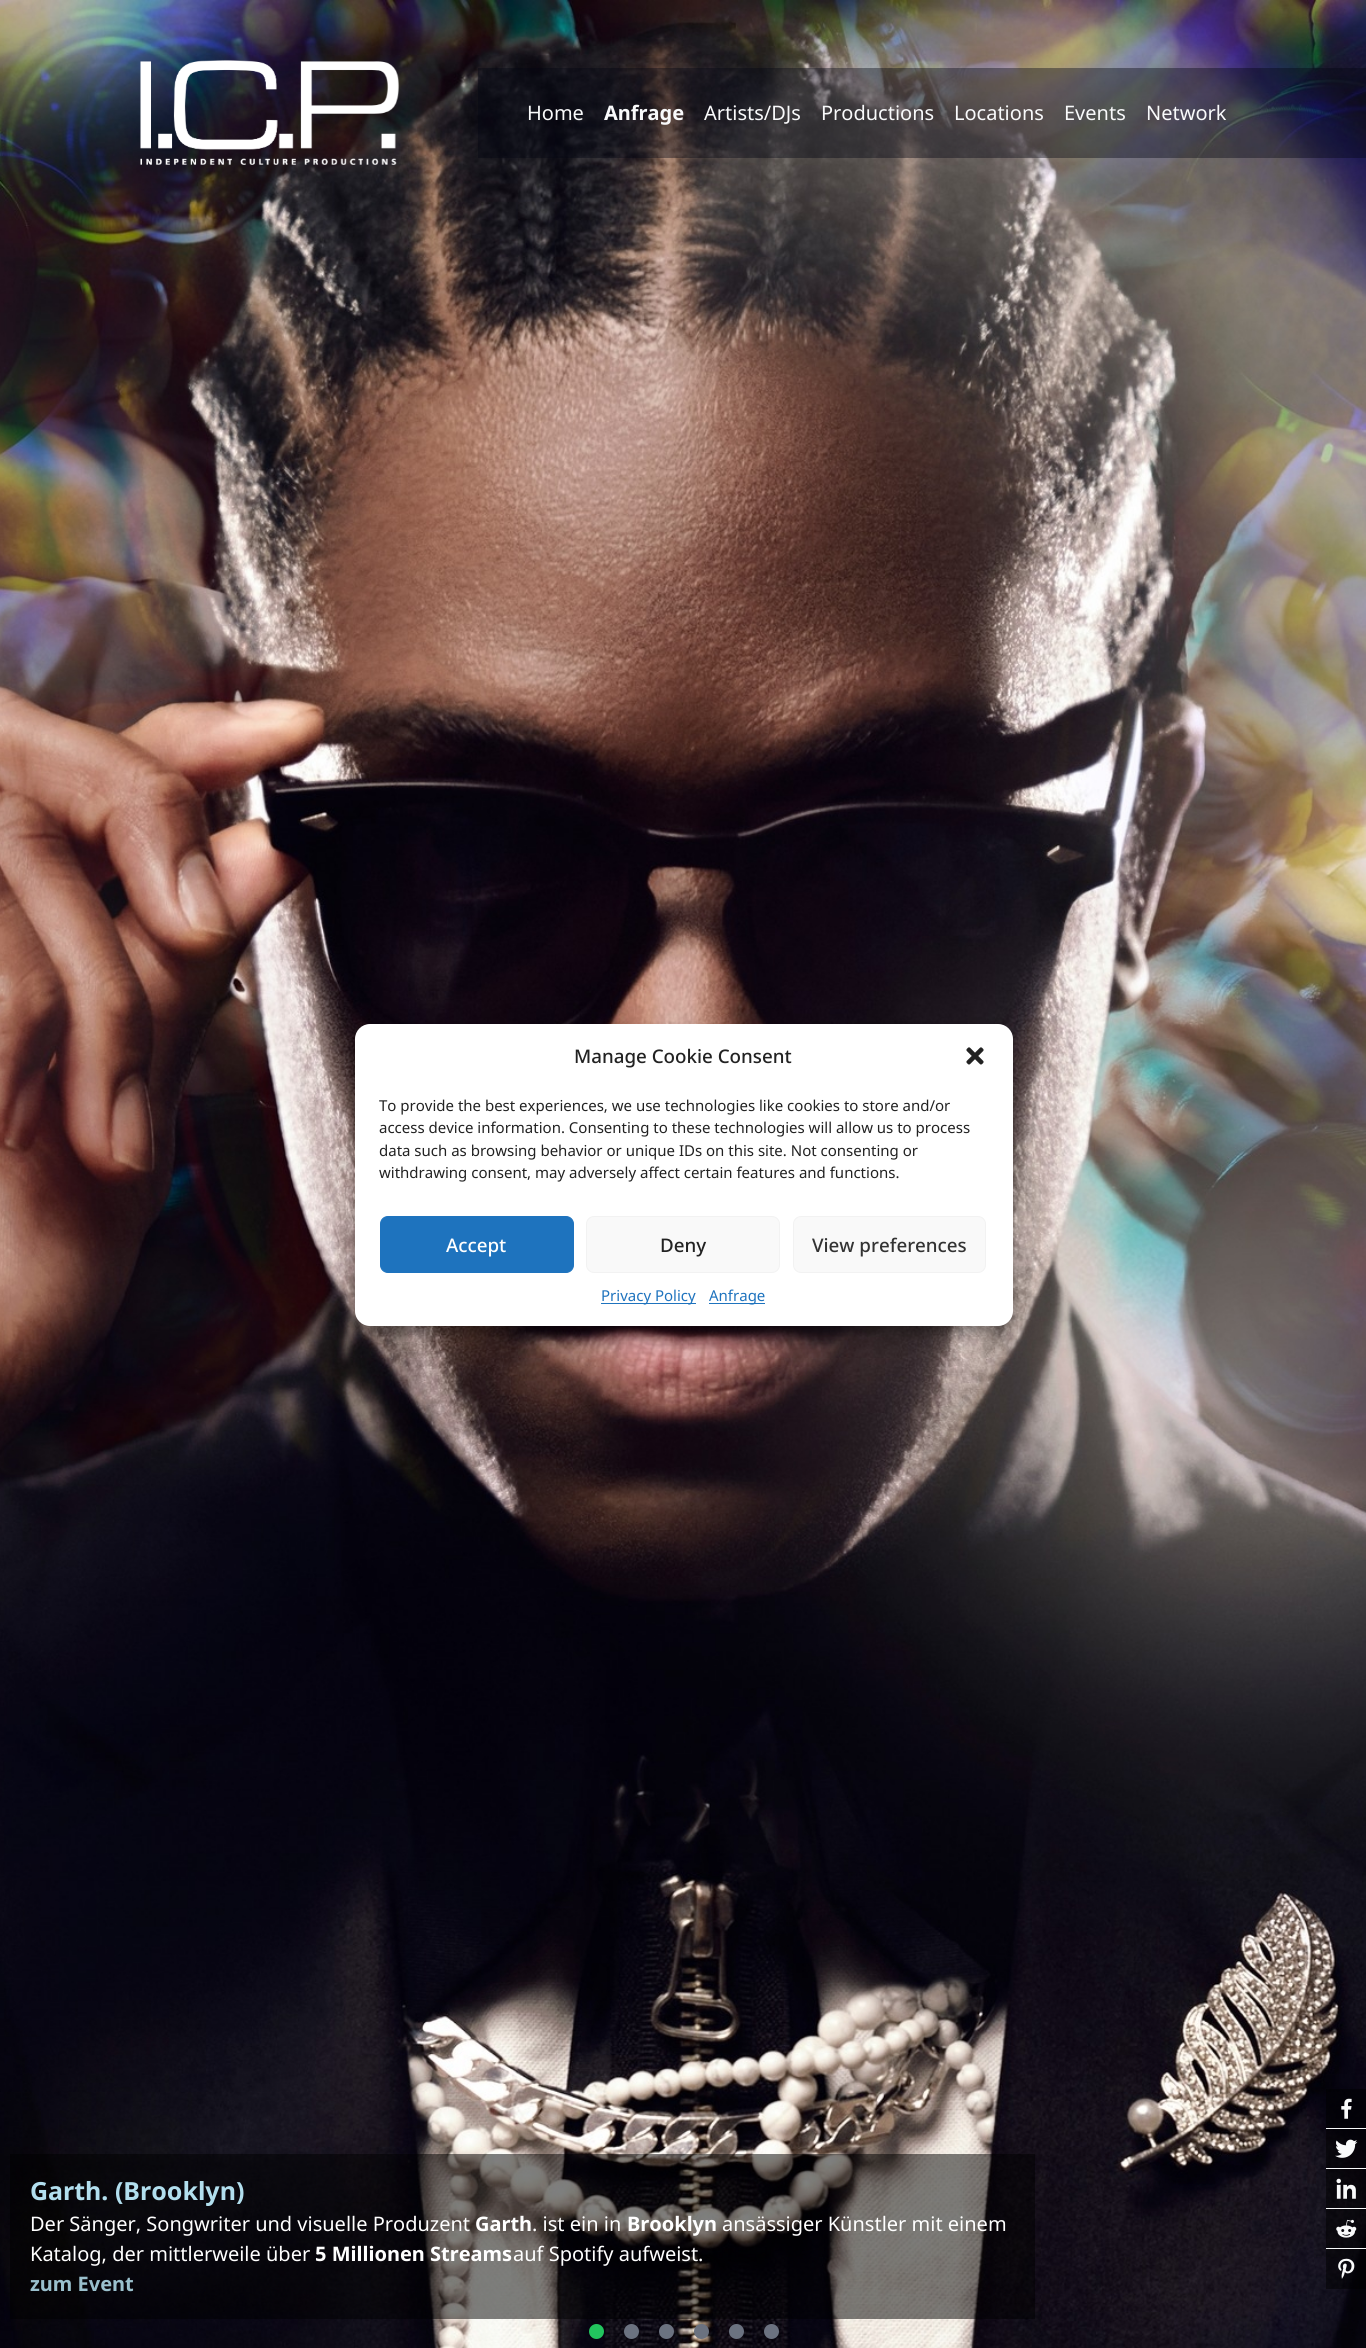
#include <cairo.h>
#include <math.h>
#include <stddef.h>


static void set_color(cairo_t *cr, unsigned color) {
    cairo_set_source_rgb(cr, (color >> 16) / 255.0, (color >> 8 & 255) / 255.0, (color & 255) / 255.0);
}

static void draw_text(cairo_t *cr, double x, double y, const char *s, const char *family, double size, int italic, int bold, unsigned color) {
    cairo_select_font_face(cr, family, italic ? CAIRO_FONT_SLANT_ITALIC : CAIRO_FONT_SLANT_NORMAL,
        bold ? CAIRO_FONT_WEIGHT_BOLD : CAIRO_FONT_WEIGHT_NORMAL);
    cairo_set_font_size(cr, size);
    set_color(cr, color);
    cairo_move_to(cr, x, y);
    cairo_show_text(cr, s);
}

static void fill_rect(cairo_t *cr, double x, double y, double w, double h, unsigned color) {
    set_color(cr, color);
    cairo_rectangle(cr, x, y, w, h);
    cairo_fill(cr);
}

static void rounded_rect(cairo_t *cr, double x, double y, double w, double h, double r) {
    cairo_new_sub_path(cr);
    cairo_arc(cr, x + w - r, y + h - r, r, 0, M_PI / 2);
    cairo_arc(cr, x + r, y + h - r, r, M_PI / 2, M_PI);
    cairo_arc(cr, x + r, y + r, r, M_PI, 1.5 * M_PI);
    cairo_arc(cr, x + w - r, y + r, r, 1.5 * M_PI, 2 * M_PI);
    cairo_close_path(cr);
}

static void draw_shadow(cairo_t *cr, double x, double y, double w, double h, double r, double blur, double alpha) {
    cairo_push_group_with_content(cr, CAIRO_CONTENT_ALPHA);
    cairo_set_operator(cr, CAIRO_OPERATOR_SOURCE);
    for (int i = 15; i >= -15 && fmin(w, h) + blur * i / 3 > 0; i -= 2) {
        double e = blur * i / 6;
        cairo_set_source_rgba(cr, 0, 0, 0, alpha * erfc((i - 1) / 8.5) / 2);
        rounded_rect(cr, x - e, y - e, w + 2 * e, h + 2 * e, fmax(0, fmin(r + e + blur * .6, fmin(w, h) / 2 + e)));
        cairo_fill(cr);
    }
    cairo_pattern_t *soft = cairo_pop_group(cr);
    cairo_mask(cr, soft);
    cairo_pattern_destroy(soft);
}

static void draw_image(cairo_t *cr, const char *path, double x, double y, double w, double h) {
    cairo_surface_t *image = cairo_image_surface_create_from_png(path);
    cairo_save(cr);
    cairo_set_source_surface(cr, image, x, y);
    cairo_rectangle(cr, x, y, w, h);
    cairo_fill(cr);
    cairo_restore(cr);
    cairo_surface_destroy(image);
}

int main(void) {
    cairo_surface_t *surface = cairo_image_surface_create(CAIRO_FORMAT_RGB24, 1366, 2348);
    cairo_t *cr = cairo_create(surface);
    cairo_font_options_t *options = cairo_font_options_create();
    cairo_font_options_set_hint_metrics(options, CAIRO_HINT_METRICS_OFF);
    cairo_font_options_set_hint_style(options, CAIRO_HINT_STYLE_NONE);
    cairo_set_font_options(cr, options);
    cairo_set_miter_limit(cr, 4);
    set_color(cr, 0xFFFFFF);
    cairo_paint(cr);
    draw_image(cr, "assets/img3.png", 0, 0, 1366, 2348);
    draw_image(cr, "assets/img1.png", 140, 60, 259, 105);
    cairo_set_source_rgba(cr, 0.012, 0.027, 0.071, 0.4);
    cairo_rectangle(cr, 478, 68, 888, 90);
    cairo_fill(cr);
    draw_text(cr, 527, 120, "Home", "Noto Sans", 20, 0, 0, 0xF9FAFB);
    draw_text(cr, 604, 120, "Anfrage", "Noto Sans", 20, 0, 1, 0xF9FAFB);
    draw_text(cr, 704, 120, "Artists/DJs", "Noto Sans", 20, 0, 0, 0xF9FAFB);
    draw_text(cr, 821, 120, "Productions", "Noto Sans", 20, 0, 0, 0xF9FAFB);
    draw_text(cr, 954, 120, "Locations", "Noto Sans", 20, 0, 0, 0xF9FAFB);
    draw_text(cr, 1064, 120, "Events", "Noto Sans", 20, 0, 0, 0xF9FAFB);
    draw_text(cr, 1146, 120, "Network", "Noto Sans", 20, 0, 0, 0xF9FAFB);
    set_color(cr, 0x000000);
    draw_shadow(cr, 355, 1031, 658, 303, 15, 4, 0.23);
    draw_shadow(cr, 355, 1036, 658, 303, 15, 12.5, 0.19);
    set_color(cr, 0xFFFFFF);
    rounded_rect(cr, 355, 1024, 658, 302, 15);
    cairo_fill(cr);
    draw_text(cr, 574, 1063, "Manage Cookie Consent", "Noto Sans Medium", 18.75, 0, 0, 0x222222);
    draw_image(cr, "assets/img2.png", 966, 1047, 18, 18);
    draw_text(cr, 379, 1111, "To provide the best experiences, we use technologies like cookies to store and/or", "Noto Sans", 15, 0, 0, 0x222222);
    draw_text(cr, 379, 1133, "access device information. Consenting to these technologies will allow us to process", "Noto Sans", 15, 0, 0, 0x222222);
    draw_text(cr, 379, 1156, "data such as browsing behavior or unique IDs on this site. Not consenting or", "Noto Sans", 15, 0, 0, 0x222222);
    draw_text(cr, 379, 1178, "withdrawing consent, may adversely affect certain features and functions.", "Noto Sans", 15, 0, 0, 0x222222);
    set_color(cr, 0x1E73BE);
    rounded_rect(cr, 380.5, 1216.5, 193, 56, 7.5);
    cairo_fill_preserve(cr);
    cairo_set_line_width(cr, 1);
    cairo_stroke(cr);
    draw_text(cr, 446, 1252, "Accept", "Noto Sans Medium", 18.75, 0, 0, 0xFFFFFF);
    set_color(cr, 0xF9F9F9);
    rounded_rect(cr, 586.5, 1216.5, 193, 56, 7.5);
    cairo_fill_preserve(cr);
    set_color(cr, 0xF2F2F2);
    cairo_stroke(cr);
    draw_text(cr, 660, 1252, "Deny", "Noto Sans Medium", 18.75, 0, 0, 0x222222);
    set_color(cr, 0xF9F9F9);
    rounded_rect(cr, 793.5, 1216.5, 192, 56, 7.5);
    cairo_fill_preserve(cr);
    set_color(cr, 0xF2F2F2);
    cairo_stroke(cr);
    draw_text(cr, 812, 1252, "View preferences", "Noto Sans Medium", 18.75, 0, 0, 0x333333);
    fill_rect(cr, 601, 1303, 95, 1, 0x1E73BE);
    draw_text(cr, 601, 1301, "Privacy Policy", "Noto Sans", 15, 0, 0, 0x1E73BE);
    fill_rect(cr, 709, 1303, 56, 1, 0x1E73BE);
    draw_text(cr, 709, 1301, "Anfrage", "Noto Sans", 15, 0, 0, 0x1E73BE);
    cairo_set_source_rgba(cr, 0, 0, 0, 0.5);
    cairo_rectangle(cr, 10, 2154, 1025, 165);
    cairo_fill(cr);
    draw_text(cr, 30, 2200, "Garth. (Brooklyn)", "Noto Sans", 25, 0, 1, 0xB2DFEE);
    draw_text(cr, 30, 2231, "Der Sänger, Songwriter und visuelle Produzent", "Noto Sans", 20, 0, 0, 0xFFFFFF);
    draw_text(cr, 475, 2231, "Garth", "Noto Sans", 20, 0, 1, 0xFFFFFF);
    draw_text(cr, 532, 2231, ". ist ein in", "Noto Sans", 20, 0, 0, 0xFFFFFF);
    draw_text(cr, 627, 2231, "Brooklyn", "Noto Sans", 20, 0, 1, 0xFFFFFF);
    draw_text(cr, 722, 2231, "ansässiger Künstler mit einem", "Noto Sans", 20, 0, 0, 0xFFFFFF);
    draw_text(cr, 30, 2261, "Katalog, der mittlerweile über", "Noto Sans", 20, 0, 0, 0xFFFFFF);
    draw_text(cr, 315, 2261, "5 Millionen Streams", "Noto Sans", 20, 0, 1, 0xFFFFFF);
    draw_text(cr, 513, 2261, "auf Spotify aufweist.", "Noto Sans", 20, 0, 0, 0xFFFFFF);
    draw_text(cr, 30, 2291, "zum Event", "Noto Sans", 20, 0, 1, 0x9AC0CD);
    set_color(cr, 0x22C55E);
    cairo_new_path(cr);
    cairo_arc(cr, 596.5, 2331.5, 7.5, 0, 2 * M_PI);
    cairo_fill(cr);
    set_color(cr, 0x6B7280);
    cairo_arc(cr, 631.5, 2331.5, 7.5, 0, 2 * M_PI);
    cairo_fill(cr);
    cairo_arc(cr, 666.5, 2331.5, 7.5, 0, 2 * M_PI);
    cairo_fill(cr);
    cairo_arc(cr, 701.5, 2331.5, 7.5, 0, 2 * M_PI);
    cairo_fill(cr);
    cairo_arc(cr, 736.5, 2331.5, 7.5, 0, 2 * M_PI);
    cairo_fill(cr);
    cairo_arc(cr, 771.5, 2331.5, 7.5, 0, 2 * M_PI);
    cairo_fill(cr);
    cairo_set_source_rgba(cr, 0, 0, 0, 0.5);
    cairo_rectangle(cr, 1326, 2089, 40, 200);
    cairo_fill(cr);
    fill_rect(cr, 1326, 2128, 40, 1, 0xF9FAFB);
    draw_image(cr, "assets/img4.png", 1341, 2098, 11, 21);
    fill_rect(cr, 1326, 2168, 40, 1, 0xF9FAFB);
    draw_image(cr, "assets/img5.png", 1335, 2139, 23, 19);
    fill_rect(cr, 1326, 2208, 40, 1, 0xF9FAFB);
    draw_image(cr, "assets/img6.png", 1336, 2178, 20, 21);
    fill_rect(cr, 1326, 2248, 40, 1, 0xF9FAFB);
    draw_image(cr, "assets/img7.png", 1336, 2219, 21, 19);
    draw_image(cr, "assets/img8.png", 1338, 2258, 17, 21);
    cairo_surface_write_to_png(surface, "output.png");
    cairo_font_options_destroy(options);
    cairo_destroy(cr);
    cairo_surface_destroy(surface);
    return 0;
}
